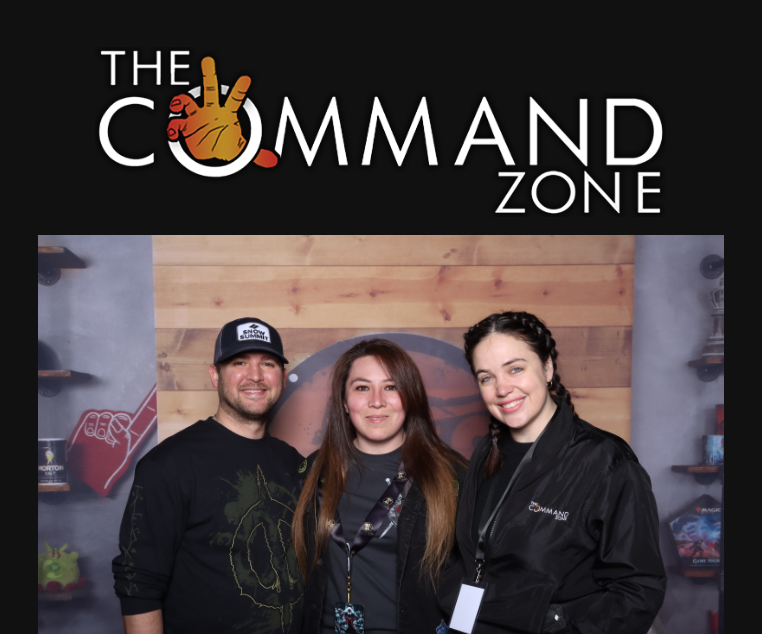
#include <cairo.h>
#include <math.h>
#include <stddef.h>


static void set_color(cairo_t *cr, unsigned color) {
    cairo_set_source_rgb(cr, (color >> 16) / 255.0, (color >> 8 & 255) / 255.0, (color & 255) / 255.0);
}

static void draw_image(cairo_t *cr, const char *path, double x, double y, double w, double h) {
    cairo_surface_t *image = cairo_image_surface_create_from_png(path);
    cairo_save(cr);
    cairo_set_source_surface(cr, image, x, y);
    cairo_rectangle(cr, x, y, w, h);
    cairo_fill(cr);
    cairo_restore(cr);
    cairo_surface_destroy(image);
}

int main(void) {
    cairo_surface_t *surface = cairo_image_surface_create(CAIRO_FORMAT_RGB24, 762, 634);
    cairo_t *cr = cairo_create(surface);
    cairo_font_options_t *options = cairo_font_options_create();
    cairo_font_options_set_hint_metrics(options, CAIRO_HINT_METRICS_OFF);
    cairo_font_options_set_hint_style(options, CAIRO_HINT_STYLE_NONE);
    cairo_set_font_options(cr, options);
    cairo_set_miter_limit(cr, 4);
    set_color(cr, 0x111111);
    cairo_paint(cr);
    draw_image(cr, "assets/img1.png", 95, 47, 571, 170);
    draw_image(cr, "assets/img2.png", 38, 235, 686, 399);
    cairo_surface_write_to_png(surface, "output.png");
    cairo_font_options_destroy(options);
    cairo_destroy(cr);
    cairo_surface_destroy(surface);
    return 0;
}
